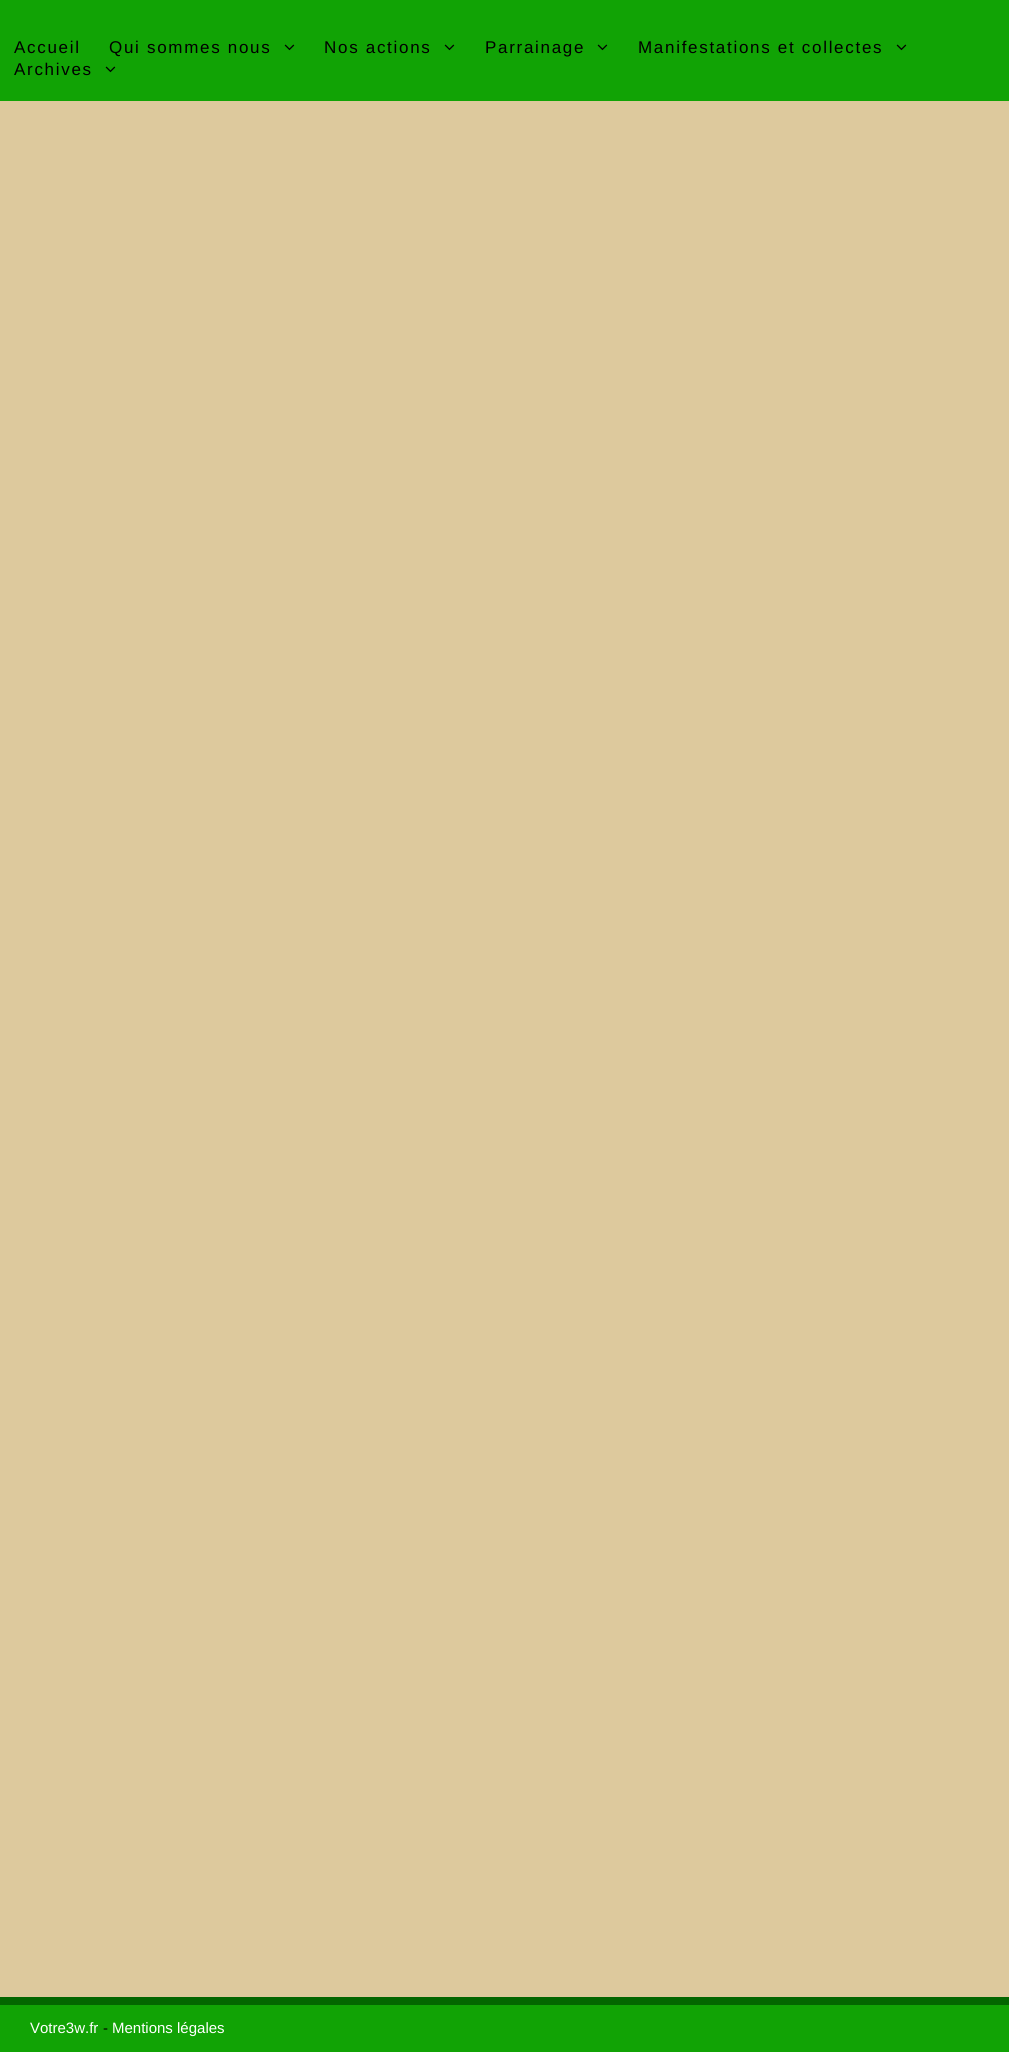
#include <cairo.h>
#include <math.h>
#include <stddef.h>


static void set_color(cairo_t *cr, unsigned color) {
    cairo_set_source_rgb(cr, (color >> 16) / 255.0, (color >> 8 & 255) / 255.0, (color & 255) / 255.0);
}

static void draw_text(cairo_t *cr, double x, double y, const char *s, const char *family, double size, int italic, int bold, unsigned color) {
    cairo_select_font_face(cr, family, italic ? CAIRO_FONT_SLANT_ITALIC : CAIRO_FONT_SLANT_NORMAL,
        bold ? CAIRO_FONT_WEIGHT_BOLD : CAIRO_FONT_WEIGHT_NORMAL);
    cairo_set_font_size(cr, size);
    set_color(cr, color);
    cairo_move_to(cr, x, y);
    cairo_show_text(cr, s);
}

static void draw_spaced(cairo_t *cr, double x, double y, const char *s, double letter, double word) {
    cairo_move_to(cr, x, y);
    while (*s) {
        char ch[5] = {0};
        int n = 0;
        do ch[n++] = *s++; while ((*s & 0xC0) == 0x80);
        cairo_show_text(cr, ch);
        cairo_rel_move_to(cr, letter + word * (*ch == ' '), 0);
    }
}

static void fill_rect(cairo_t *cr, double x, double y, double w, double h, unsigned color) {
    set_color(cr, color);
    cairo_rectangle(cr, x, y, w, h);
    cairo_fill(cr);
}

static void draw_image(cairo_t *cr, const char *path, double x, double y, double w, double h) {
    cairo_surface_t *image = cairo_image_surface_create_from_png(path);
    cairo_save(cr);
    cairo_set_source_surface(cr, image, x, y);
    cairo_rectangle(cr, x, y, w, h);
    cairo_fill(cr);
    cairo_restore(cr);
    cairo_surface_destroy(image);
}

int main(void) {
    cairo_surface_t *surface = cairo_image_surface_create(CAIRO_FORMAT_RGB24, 1009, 2052);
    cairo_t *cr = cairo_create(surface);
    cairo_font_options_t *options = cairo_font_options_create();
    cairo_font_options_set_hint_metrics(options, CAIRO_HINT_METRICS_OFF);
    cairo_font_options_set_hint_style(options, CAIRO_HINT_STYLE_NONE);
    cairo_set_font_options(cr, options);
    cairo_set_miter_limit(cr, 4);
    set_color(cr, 0xDDC99D);
    cairo_paint(cr);
    fill_rect(cr, 0, 0, 1009, 101, 0x11A305);
    cairo_select_font_face(cr, "Liberation Sans", CAIRO_FONT_SLANT_NORMAL, CAIRO_FONT_WEIGHT_NORMAL);
    cairo_set_font_size(cr, 17);
    set_color(cr, 0x000000);
    draw_spaced(cr, 14, 53, "Accueil", 1.7, 0);
    draw_spaced(cr, 109, 53, "Qui sommes nous", 1.7, 0);
    draw_image(cr, "assets/img1.png", 284, 44, 11, 7);
    draw_spaced(cr, 324, 53, "Nos actions", 1.7, 0);
    draw_image(cr, "assets/img1.png", 444, 44, 11, 7);
    draw_spaced(cr, 485, 53, "Parrainage", 1.7, 0);
    draw_image(cr, "assets/img1.png", 597, 44, 11, 7);
    draw_spaced(cr, 638, 53, "Manifestations et collectes", 1.7, 0);
    draw_image(cr, "assets/img1.png", 896, 44, 11, 7);
    draw_spaced(cr, 14, 75, "Archives", 1.7, 0);
    draw_image(cr, "assets/img1.png", 105, 66, 11, 7);
    fill_rect(cr, 0, 1997, 1009, 8, 0x036600);
    fill_rect(cr, 0, 2005, 1009, 47, 0x11A305);
    draw_text(cr, 30, 2033, "Votre3w.fr", "Liberation Sans", 15, 0, 0, 0xFFFFFF);
    draw_text(cr, 103, 2033, "-", "Liberation Sans", 15, 0, 0, 0x000000);
    draw_text(cr, 112, 2033, "Mentions légales", "Liberation Sans", 15, 0, 0, 0xFFFFFF);
    cairo_surface_write_to_png(surface, "output.png");
    cairo_font_options_destroy(options);
    cairo_destroy(cr);
    cairo_surface_destroy(surface);
    return 0;
}
